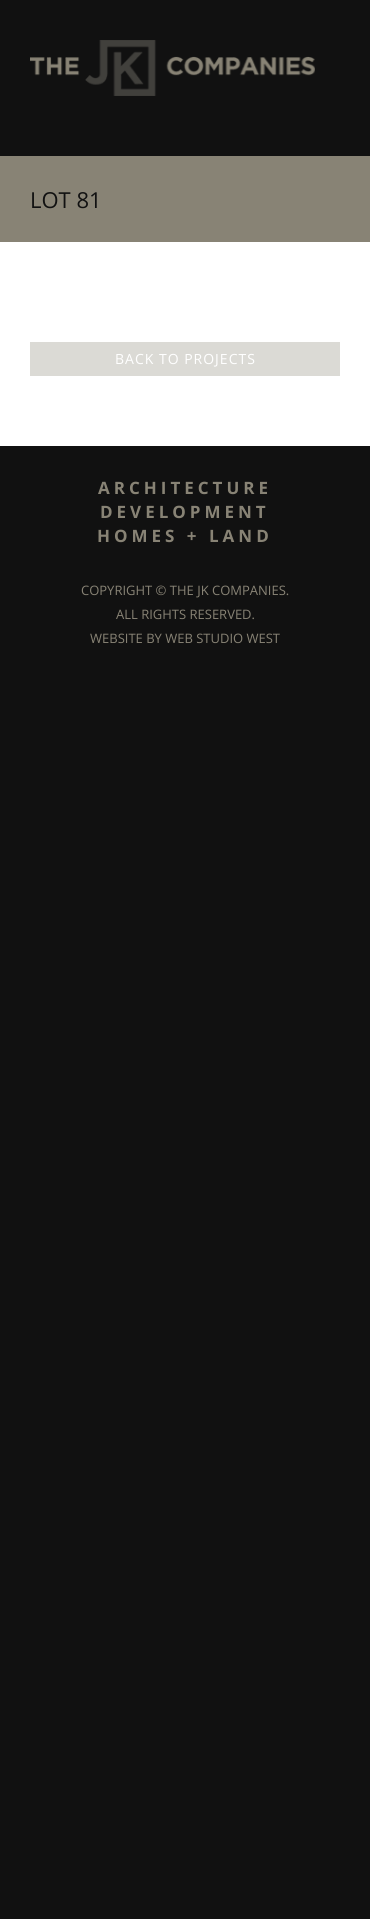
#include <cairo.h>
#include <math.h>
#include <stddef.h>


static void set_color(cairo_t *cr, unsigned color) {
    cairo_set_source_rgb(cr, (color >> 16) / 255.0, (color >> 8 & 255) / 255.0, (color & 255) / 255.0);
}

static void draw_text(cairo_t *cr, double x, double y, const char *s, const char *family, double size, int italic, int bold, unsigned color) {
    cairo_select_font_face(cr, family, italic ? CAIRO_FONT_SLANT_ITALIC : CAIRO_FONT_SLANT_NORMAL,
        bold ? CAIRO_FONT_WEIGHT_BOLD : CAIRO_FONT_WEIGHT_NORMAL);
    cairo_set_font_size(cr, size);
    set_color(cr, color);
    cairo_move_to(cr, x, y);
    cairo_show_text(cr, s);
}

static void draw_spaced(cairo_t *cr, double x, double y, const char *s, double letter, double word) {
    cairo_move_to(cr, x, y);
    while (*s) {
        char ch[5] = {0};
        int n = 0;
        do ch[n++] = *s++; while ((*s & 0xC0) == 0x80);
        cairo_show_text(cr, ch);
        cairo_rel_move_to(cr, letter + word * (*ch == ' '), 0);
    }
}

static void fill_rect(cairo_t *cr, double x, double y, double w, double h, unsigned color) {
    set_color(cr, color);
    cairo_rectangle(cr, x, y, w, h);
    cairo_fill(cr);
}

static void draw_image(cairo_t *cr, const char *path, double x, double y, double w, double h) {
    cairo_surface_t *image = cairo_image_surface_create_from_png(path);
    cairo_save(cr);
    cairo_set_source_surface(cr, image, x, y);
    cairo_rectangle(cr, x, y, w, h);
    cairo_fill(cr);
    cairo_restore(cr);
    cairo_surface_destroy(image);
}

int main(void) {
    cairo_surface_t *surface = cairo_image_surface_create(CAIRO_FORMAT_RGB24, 370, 1919);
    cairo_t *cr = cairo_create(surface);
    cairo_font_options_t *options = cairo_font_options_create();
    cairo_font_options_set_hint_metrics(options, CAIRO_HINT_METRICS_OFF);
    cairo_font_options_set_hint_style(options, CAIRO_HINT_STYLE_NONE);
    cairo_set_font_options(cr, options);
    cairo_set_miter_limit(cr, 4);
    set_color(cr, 0x111111);
    cairo_paint(cr);
    fill_rect(cr, 0, 242, 370, 204, 0xFFFFFF);
    draw_image(cr, "assets/img1.png", 30, 40, 285, 56);
    fill_rect(cr, 0, 156, 370, 86, 0x888375);
    draw_text(cr, 30, 208, "LOT 81", "Open Sans", 22, 0, 0, 0x111111);
    fill_rect(cr, 30, 342, 310, 34, 0xDBDAD5);
    cairo_set_font_size(cr, 14);
    set_color(cr, 0xFFFFFF);
    draw_spaced(cr, 115, 364, "BACK TO PROJECTS", 1, 0);
    cairo_select_font_face(cr, "Open Sans", CAIRO_FONT_SLANT_NORMAL, CAIRO_FONT_WEIGHT_BOLD);
    cairo_set_font_size(cr, 17);
    set_color(cr, 0x888375);
    draw_spaced(cr, 98, 494, "ARCHITECTURE", 4, 0);
    draw_spaced(cr, 100, 518, "DEVELOPMENT", 4, 0);
    draw_spaced(cr, 97, 542, "HOMES + LAND", 4, 0);
    draw_text(cr, 81, 595, "COPYRIGHT © THE JK COMPANIES.", "Open Sans", 13, 0, 0, 0x888375);
    draw_text(cr, 116, 619, "ALL RIGHTS RESERVED.", "Open Sans", 13, 0, 0, 0x888375);
    draw_text(cr, 90, 643, "WEBSITE BY WEB STUDIO WEST", "Open Sans", 13, 0, 0, 0x888375);
    cairo_surface_write_to_png(surface, "output.png");
    cairo_font_options_destroy(options);
    cairo_destroy(cr);
    cairo_surface_destroy(surface);
    return 0;
}
